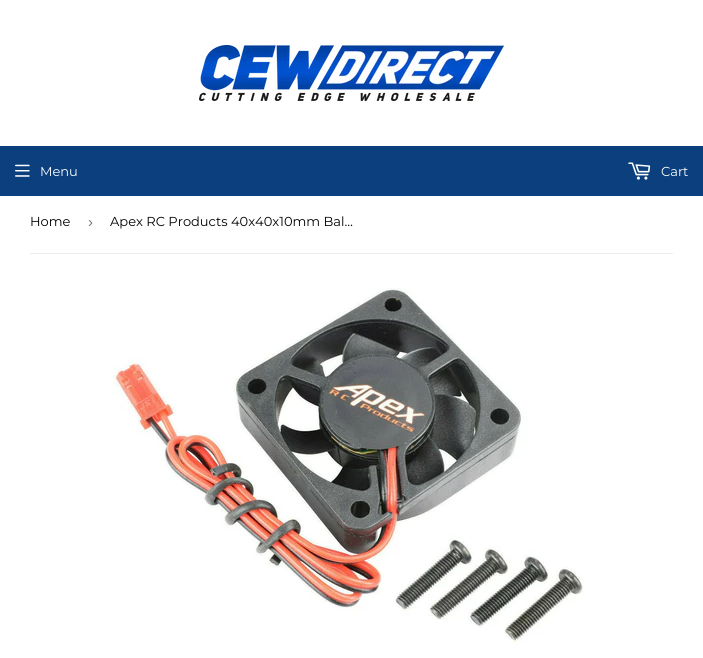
#include <cairo.h>
#include <math.h>
#include <stddef.h>


static void set_color(cairo_t *cr, unsigned color) {
    cairo_set_source_rgb(cr, (color >> 16) / 255.0, (color >> 8 & 255) / 255.0, (color & 255) / 255.0);
}

static void draw_text(cairo_t *cr, double x, double y, const char *s, const char *family, double size, int italic, int bold, unsigned color) {
    cairo_select_font_face(cr, family, italic ? CAIRO_FONT_SLANT_ITALIC : CAIRO_FONT_SLANT_NORMAL,
        bold ? CAIRO_FONT_WEIGHT_BOLD : CAIRO_FONT_WEIGHT_NORMAL);
    cairo_set_font_size(cr, size);
    set_color(cr, color);
    cairo_move_to(cr, x, y);
    cairo_show_text(cr, s);
}

static void fill_rect(cairo_t *cr, double x, double y, double w, double h, unsigned color) {
    set_color(cr, color);
    cairo_rectangle(cr, x, y, w, h);
    cairo_fill(cr);
}

static void draw_image(cairo_t *cr, const char *path, double x, double y, double w, double h) {
    cairo_surface_t *image = cairo_image_surface_create_from_png(path);
    cairo_save(cr);
    cairo_set_source_surface(cr, image, x, y);
    cairo_rectangle(cr, x, y, w, h);
    cairo_fill(cr);
    cairo_restore(cr);
    cairo_surface_destroy(image);
}

int main(void) {
    cairo_surface_t *surface = cairo_image_surface_create(CAIRO_FORMAT_RGB24, 703, 658);
    cairo_t *cr = cairo_create(surface);
    cairo_font_options_t *options = cairo_font_options_create();
    cairo_font_options_set_hint_metrics(options, CAIRO_HINT_METRICS_OFF);
    cairo_font_options_set_hint_style(options, CAIRO_HINT_STYLE_NONE);
    cairo_set_font_options(cr, options);
    cairo_set_miter_limit(cr, 4);
    set_color(cr, 0xFFFFFF);
    cairo_paint(cr);
    draw_image(cr, "assets/img1.png", 199, 45, 305, 56);
    fill_rect(cr, 0, 146, 703, 50, 0x0B3F7E);
    draw_image(cr, "assets/img2.png", 15, 164, 15, 13);
    draw_text(cr, 40, 176, "Menu", "Montserrat", 13, 0, 0, 0xFFFFFF);
    draw_image(cr, "assets/img3.png", 628, 162, 23, 18);
    draw_text(cr, 661, 176, "Cart", "Montserrat", 13, 0, 0, 0xFFFFFF);
    fill_rect(cr, 30, 253, 643, 1, 0xECECEC);
    draw_text(cr, 30, 226, "Home", "Montserrat", 13, 0, 0, 0x000000);
    draw_text(cr, 88, 227, "›", "Liberation Sans", 15, 0, 0, 0x767676);
    draw_text(cr, 110, 226, "Apex RC Products 40x40x10mm Bal…", "Montserrat", 13, 0, 0, 0x000000);
    draw_image(cr, "assets/img4.png", 112, 288, 472, 356);
    cairo_surface_write_to_png(surface, "output.png");
    cairo_font_options_destroy(options);
    cairo_destroy(cr);
    cairo_surface_destroy(surface);
    return 0;
}
